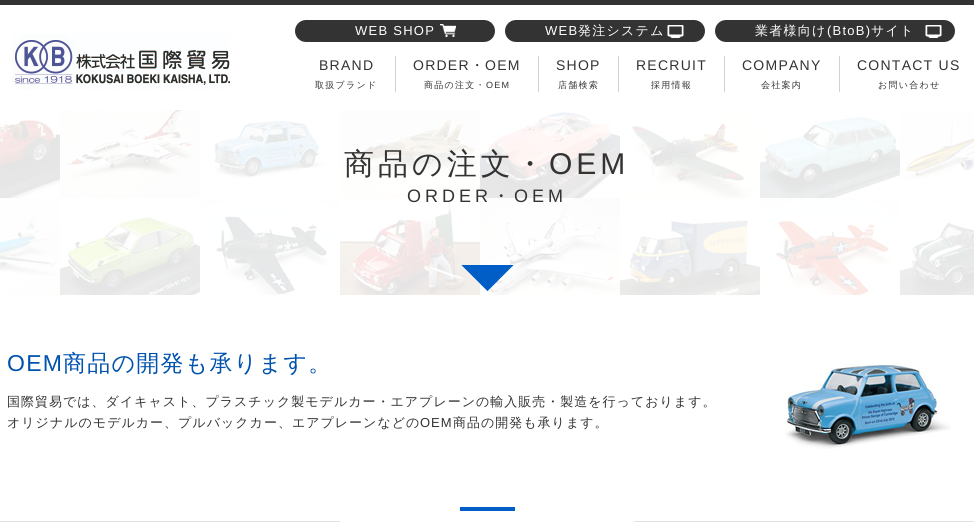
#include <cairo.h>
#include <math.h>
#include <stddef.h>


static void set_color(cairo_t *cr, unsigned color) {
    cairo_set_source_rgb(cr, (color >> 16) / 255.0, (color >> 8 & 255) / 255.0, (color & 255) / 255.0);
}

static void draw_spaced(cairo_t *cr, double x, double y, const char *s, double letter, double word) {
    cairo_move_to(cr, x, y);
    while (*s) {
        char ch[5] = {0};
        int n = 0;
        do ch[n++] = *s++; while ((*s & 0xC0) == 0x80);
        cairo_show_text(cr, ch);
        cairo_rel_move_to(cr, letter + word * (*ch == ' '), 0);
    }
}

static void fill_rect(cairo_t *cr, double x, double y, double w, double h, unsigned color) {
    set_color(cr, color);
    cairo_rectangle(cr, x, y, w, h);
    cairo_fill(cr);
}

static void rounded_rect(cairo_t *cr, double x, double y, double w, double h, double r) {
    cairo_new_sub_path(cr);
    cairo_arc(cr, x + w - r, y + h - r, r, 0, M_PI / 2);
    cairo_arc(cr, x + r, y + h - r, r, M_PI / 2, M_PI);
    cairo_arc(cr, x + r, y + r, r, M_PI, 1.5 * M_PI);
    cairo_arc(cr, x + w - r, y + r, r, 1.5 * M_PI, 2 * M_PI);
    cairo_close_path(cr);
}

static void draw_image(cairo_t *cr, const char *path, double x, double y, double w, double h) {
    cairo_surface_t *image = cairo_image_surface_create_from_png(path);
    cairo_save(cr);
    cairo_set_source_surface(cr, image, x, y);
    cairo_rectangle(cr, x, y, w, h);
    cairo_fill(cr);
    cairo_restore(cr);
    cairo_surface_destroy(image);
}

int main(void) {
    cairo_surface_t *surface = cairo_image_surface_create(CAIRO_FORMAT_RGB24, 974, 525);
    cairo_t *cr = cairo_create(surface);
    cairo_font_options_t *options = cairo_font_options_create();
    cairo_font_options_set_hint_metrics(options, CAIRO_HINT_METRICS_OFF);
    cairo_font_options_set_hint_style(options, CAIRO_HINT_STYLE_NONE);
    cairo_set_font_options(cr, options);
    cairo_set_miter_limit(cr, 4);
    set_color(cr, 0xFFFFFF);
    cairo_paint(cr);
    fill_rect(cr, 0, 0, 974, 5, 0x333333);
    rounded_rect(cr, 295, 20, 200, 22, 11);
    cairo_fill(cr);
    draw_image(cr, "assets/img1.png", 440, 24, 16, 13);
    cairo_select_font_face(cr, "Liberation Sans", CAIRO_FONT_SLANT_NORMAL, CAIRO_FONT_WEIGHT_NORMAL);
    cairo_set_font_size(cr, 13);
    set_color(cr, 0xFFFFFF);
    draw_spaced(cr, 355, 35, "WEB SHOP", 1.25, 0);
    set_color(cr, 0x333333);
    rounded_rect(cr, 505, 20, 200, 22, 11);
    cairo_fill(cr);
    draw_image(cr, "assets/img2.png", 667, 25, 17, 13);
    set_color(cr, 0xFFFFFF);
    draw_spaced(cr, 545, 35, "WEB", 1.25, 0);
    cairo_select_font_face(cr, "WenQuanYi Zen Hei Medium", CAIRO_FONT_SLANT_NORMAL, CAIRO_FONT_WEIGHT_NORMAL);
    draw_spaced(cr, 578, 35, "発注システム", 1.25, 0);
    set_color(cr, 0x333333);
    rounded_rect(cr, 715, 20, 240, 22, 11);
    cairo_fill(cr);
    draw_image(cr, "assets/img2.png", 925, 25, 17, 13);
    set_color(cr, 0xFFFFFF);
    draw_spaced(cr, 755, 35, "業者様向け", 1.25, 0);
    cairo_select_font_face(cr, "Liberation Sans", CAIRO_FONT_SLANT_NORMAL, CAIRO_FONT_WEIGHT_NORMAL);
    draw_spaced(cr, 827, 35, "(BtoB)", 1.25, 0);
    cairo_select_font_face(cr, "WenQuanYi Zen Hei Medium", CAIRO_FONT_SLANT_NORMAL, CAIRO_FONT_WEIGHT_NORMAL);
    draw_spaced(cr, 871, 35, "サイト", 1.25, 0);
    draw_image(cr, "assets/img3.png", 12, 34, 218, 56);
    fill_rect(cr, 395, 56, 1, 36, 0xD1D1D1);
    cairo_select_font_face(cr, "Liberation Sans", CAIRO_FONT_SLANT_NORMAL, CAIRO_FONT_WEIGHT_NORMAL);
    cairo_set_font_size(cr, 14);
    set_color(cr, 0x333333);
    draw_spaced(cr, 319, 70, "BRAND", 1.25, 0);
    cairo_select_font_face(cr, "WenQuanYi Zen Hei Medium", CAIRO_FONT_SLANT_NORMAL, CAIRO_FONT_WEIGHT_NORMAL);
    cairo_set_font_size(cr, 9);
    draw_spaced(cr, 315, 88, "取扱ブランド", 1.25, 0);
    fill_rect(cr, 538, 56, 1, 36, 0xD1D1D1);
    cairo_select_font_face(cr, "Liberation Sans", CAIRO_FONT_SLANT_NORMAL, CAIRO_FONT_WEIGHT_NORMAL);
    cairo_set_font_size(cr, 14);
    set_color(cr, 0x333333);
    draw_spaced(cr, 413, 70, "ORDER", 1.25, 0);
    cairo_select_font_face(cr, "WenQuanYi Zen Hei Medium", CAIRO_FONT_SLANT_NORMAL, CAIRO_FONT_WEIGHT_NORMAL);
    draw_spaced(cr, 470, 70, "・", 1.25, 0);
    cairo_select_font_face(cr, "Liberation Sans", CAIRO_FONT_SLANT_NORMAL, CAIRO_FONT_WEIGHT_NORMAL);
    draw_spaced(cr, 485, 70, "OEM", 1.25, 0);
    cairo_select_font_face(cr, "WenQuanYi Zen Hei Medium", CAIRO_FONT_SLANT_NORMAL, CAIRO_FONT_WEIGHT_NORMAL);
    cairo_set_font_size(cr, 9);
    draw_spaced(cr, 424, 88, "商品の注文・", 1.25, 0);
    cairo_select_font_face(cr, "Liberation Sans", CAIRO_FONT_SLANT_NORMAL, CAIRO_FONT_WEIGHT_NORMAL);
    draw_spaced(cr, 486, 88, "OEM", 1.25, 0);
    fill_rect(cr, 618, 56, 1, 36, 0xD1D1D1);
    cairo_set_font_size(cr, 14);
    set_color(cr, 0x333333);
    draw_spaced(cr, 556, 70, "SHOP", 1.25, 0);
    cairo_select_font_face(cr, "WenQuanYi Zen Hei Medium", CAIRO_FONT_SLANT_NORMAL, CAIRO_FONT_WEIGHT_NORMAL);
    cairo_set_font_size(cr, 9);
    draw_spaced(cr, 558, 88, "店舗検索", 1.25, 0);
    fill_rect(cr, 724, 56, 1, 36, 0xD1D1D1);
    cairo_select_font_face(cr, "Liberation Sans", CAIRO_FONT_SLANT_NORMAL, CAIRO_FONT_WEIGHT_NORMAL);
    cairo_set_font_size(cr, 14);
    set_color(cr, 0x333333);
    draw_spaced(cr, 636, 70, "RECRUIT", 1.25, 0);
    cairo_select_font_face(cr, "WenQuanYi Zen Hei Medium", CAIRO_FONT_SLANT_NORMAL, CAIRO_FONT_WEIGHT_NORMAL);
    cairo_set_font_size(cr, 9);
    draw_spaced(cr, 651, 88, "採用情報", 1.25, 0);
    fill_rect(cr, 839, 56, 1, 36, 0xD1D1D1);
    cairo_select_font_face(cr, "Liberation Sans", CAIRO_FONT_SLANT_NORMAL, CAIRO_FONT_WEIGHT_NORMAL);
    cairo_set_font_size(cr, 14);
    set_color(cr, 0x333333);
    draw_spaced(cr, 742, 70, "COMPANY", 1.25, 0);
    cairo_select_font_face(cr, "WenQuanYi Zen Hei Medium", CAIRO_FONT_SLANT_NORMAL, CAIRO_FONT_WEIGHT_NORMAL);
    cairo_set_font_size(cr, 9);
    draw_spaced(cr, 761, 88, "会社案内", 1.25, 0);
    cairo_select_font_face(cr, "Liberation Sans", CAIRO_FONT_SLANT_NORMAL, CAIRO_FONT_WEIGHT_NORMAL);
    cairo_set_font_size(cr, 14);
    draw_spaced(cr, 857, 70, "CONTACT US", 1.25, 0);
    cairo_select_font_face(cr, "WenQuanYi Zen Hei Medium", CAIRO_FONT_SLANT_NORMAL, CAIRO_FONT_WEIGHT_NORMAL);
    cairo_set_font_size(cr, 9);
    draw_spaced(cr, 878, 88, "お問い合わせ", 1.25, 0);
    draw_image(cr, "assets/img4.png", 0, 110, 974, 185);
    cairo_set_font_size(cr, 30);
    draw_spaced(cr, 344, 174, "商品の注文・", 4, 0);
    cairo_select_font_face(cr, "Liberation Sans", CAIRO_FONT_SLANT_NORMAL, CAIRO_FONT_WEIGHT_NORMAL);
    draw_spaced(cr, 549, 174, "OEM", 4, 0);
    cairo_set_font_size(cr, 18);
    draw_spaced(cr, 407, 202, "ORDER", 4, 0);
    cairo_select_font_face(cr, "WenQuanYi Zen Hei Medium", CAIRO_FONT_SLANT_NORMAL, CAIRO_FONT_WEIGHT_NORMAL);
    draw_spaced(cr, 492, 202, "・", 4, 0);
    cairo_select_font_face(cr, "Liberation Sans", CAIRO_FONT_SLANT_NORMAL, CAIRO_FONT_WEIGHT_NORMAL);
    draw_spaced(cr, 514, 202, "OEM", 4, 0);
    draw_image(cr, "assets/img5.png", 461, 265, 53, 26);
    cairo_set_font_size(cr, 23);
    set_color(cr, 0x0052AD);
    draw_spaced(cr, 7, 371, "OEM", 1.25, 0);
    cairo_select_font_face(cr, "WenQuanYi Zen Hei Medium", CAIRO_FONT_SLANT_NORMAL, CAIRO_FONT_WEIGHT_NORMAL);
    draw_spaced(cr, 63, 371, "商品の開発も承ります。", 1.25, 0);
    cairo_set_font_size(cr, 13);
    set_color(cr, 0x333333);
    draw_spaced(cr, 7, 406, "国際貿易では、ダイキャスト、プラスチック製モデルカー・エアプレーンの輸入販売・製造を行っております。", 1, 0);
    draw_spaced(cr, 7, 427, "オリジナルのモデルカー、プルバックカー、エアプレーンなどの", 1, 0);
    cairo_select_font_face(cr, "Liberation Sans", CAIRO_FONT_SLANT_NORMAL, CAIRO_FONT_WEIGHT_NORMAL);
    draw_spaced(cr, 420, 427, "OEM", 1, 0);
    cairo_select_font_face(cr, "WenQuanYi Zen Hei Medium", CAIRO_FONT_SLANT_NORMAL, CAIRO_FONT_WEIGHT_NORMAL);
    draw_spaced(cr, 453, 427, "商品の開発も承ります。", 1, 0);
    draw_image(cr, "assets/img6.png", 785, 363, 166, 86);
    fill_rect(cr, 0, 521, 974, 1, 0xE3E3E3);
    fill_rect(cr, 460, 507, 55, 4, 0x005EC6);
    fill_rect(cr, 340, 521, 294, 1, 0xFFFFFF);
    cairo_surface_write_to_png(surface, "output.png");
    cairo_font_options_destroy(options);
    cairo_destroy(cr);
    cairo_surface_destroy(surface);
    return 0;
}
